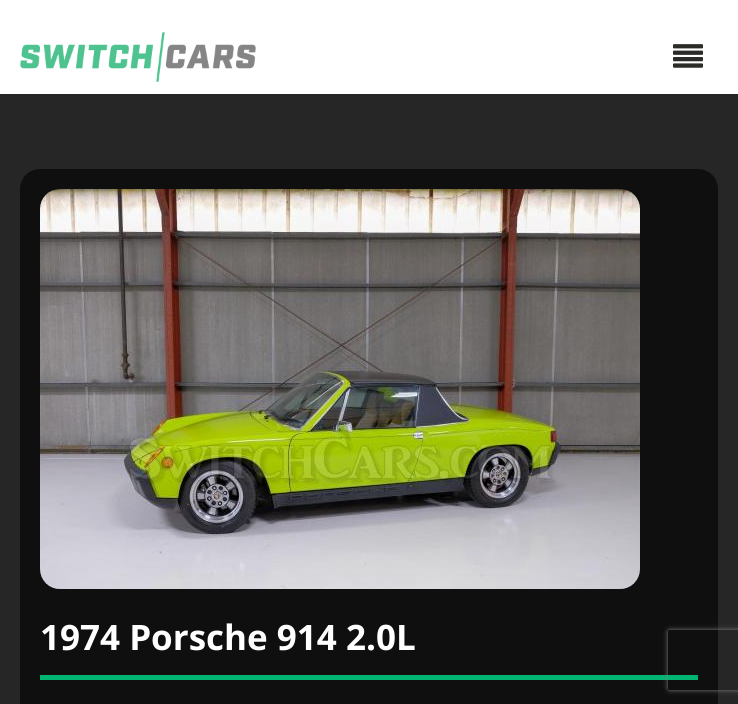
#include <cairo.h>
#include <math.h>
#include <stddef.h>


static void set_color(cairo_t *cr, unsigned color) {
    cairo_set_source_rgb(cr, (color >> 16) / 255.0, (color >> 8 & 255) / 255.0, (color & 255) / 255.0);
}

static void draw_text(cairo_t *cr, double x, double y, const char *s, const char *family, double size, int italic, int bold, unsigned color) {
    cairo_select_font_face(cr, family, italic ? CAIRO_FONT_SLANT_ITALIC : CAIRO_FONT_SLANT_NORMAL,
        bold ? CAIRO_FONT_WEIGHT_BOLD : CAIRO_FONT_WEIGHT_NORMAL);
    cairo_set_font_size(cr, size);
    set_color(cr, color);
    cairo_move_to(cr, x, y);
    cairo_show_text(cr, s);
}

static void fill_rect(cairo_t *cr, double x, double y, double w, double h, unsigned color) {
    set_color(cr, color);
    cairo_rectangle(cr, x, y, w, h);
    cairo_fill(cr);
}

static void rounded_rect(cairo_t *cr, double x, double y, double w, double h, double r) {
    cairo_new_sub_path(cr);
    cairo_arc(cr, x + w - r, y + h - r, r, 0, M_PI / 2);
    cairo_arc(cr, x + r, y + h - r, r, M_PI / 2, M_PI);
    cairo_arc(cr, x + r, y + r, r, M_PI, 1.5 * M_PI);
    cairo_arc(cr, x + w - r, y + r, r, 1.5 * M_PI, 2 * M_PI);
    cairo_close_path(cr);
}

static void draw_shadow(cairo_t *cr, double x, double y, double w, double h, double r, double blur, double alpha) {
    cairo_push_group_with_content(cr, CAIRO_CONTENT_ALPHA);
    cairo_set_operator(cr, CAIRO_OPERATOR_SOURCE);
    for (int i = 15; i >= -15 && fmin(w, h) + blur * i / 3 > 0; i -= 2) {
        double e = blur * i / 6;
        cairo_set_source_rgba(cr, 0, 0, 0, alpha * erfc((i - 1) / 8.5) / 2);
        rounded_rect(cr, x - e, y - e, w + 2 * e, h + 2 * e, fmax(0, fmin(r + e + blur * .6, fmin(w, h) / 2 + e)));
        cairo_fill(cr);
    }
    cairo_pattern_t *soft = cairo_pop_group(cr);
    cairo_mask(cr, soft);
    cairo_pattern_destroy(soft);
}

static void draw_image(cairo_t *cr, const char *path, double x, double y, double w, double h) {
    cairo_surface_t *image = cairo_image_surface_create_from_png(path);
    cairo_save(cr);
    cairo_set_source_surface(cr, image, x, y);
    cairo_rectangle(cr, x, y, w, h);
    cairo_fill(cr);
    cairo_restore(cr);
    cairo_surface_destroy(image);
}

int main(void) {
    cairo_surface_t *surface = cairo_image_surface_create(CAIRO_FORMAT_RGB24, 738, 704);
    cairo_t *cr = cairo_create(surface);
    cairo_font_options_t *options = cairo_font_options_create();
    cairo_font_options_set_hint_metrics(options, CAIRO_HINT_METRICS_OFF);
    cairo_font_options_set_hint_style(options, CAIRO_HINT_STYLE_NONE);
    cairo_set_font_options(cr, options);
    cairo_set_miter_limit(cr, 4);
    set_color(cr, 0xFFFFFF);
    cairo_paint(cr);
    draw_image(cr, "assets/img1.png", 20, 32, 236, 50);
    draw_image(cr, "assets/img2.png", 673, 44, 30, 24);
    fill_rect(cr, 0, 94, 738, 610, 0x262626);
    set_color(cr, 0x0F0F0F);
    rounded_rect(cr, 20, 169, 698, 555, 20);
    cairo_fill(cr);
    draw_image(cr, "assets/img3.png", 40, 189, 600, 400);
    fill_rect(cr, 40, 675, 658, 5, 0x00B472);
    draw_text(cr, 40, 650, "1974 Porsche 914 2.0L", "Open Sans", 35, 0, 1, 0xFFFFFF);
    cairo_save(cr);
    cairo_set_fill_rule(cr, CAIRO_FILL_RULE_EVEN_ODD);
    cairo_new_path(cr);
    cairo_move_to(cr, 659, 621);
    cairo_line_to(cr, 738, 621);
    cairo_line_to(cr, 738, 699);
    cairo_line_to(cr, 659, 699);
    cairo_close_path(cr);
    cairo_move_to(cr, 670, 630);
    cairo_line_to(cr, 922, 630);
    cairo_curve_to(cr, 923, 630, 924, 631, 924, 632);
    cairo_line_to(cr, 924, 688);
    cairo_curve_to(cr, 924, 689, 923, 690, 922, 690);
    cairo_line_to(cr, 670, 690);
    cairo_curve_to(cr, 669, 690, 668, 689, 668, 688);
    cairo_line_to(cr, 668, 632);
    cairo_curve_to(cr, 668, 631, 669, 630, 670, 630);
    cairo_close_path(cr);
    cairo_clip(cr);
    set_color(cr, 0x808080);
    draw_shadow(cr, 668, 630, 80, 60, 2, 2.5, 1);
    cairo_restore(cr);
    cairo_surface_write_to_png(surface, "output.png");
    cairo_font_options_destroy(options);
    cairo_destroy(cr);
    cairo_surface_destroy(surface);
    return 0;
}
